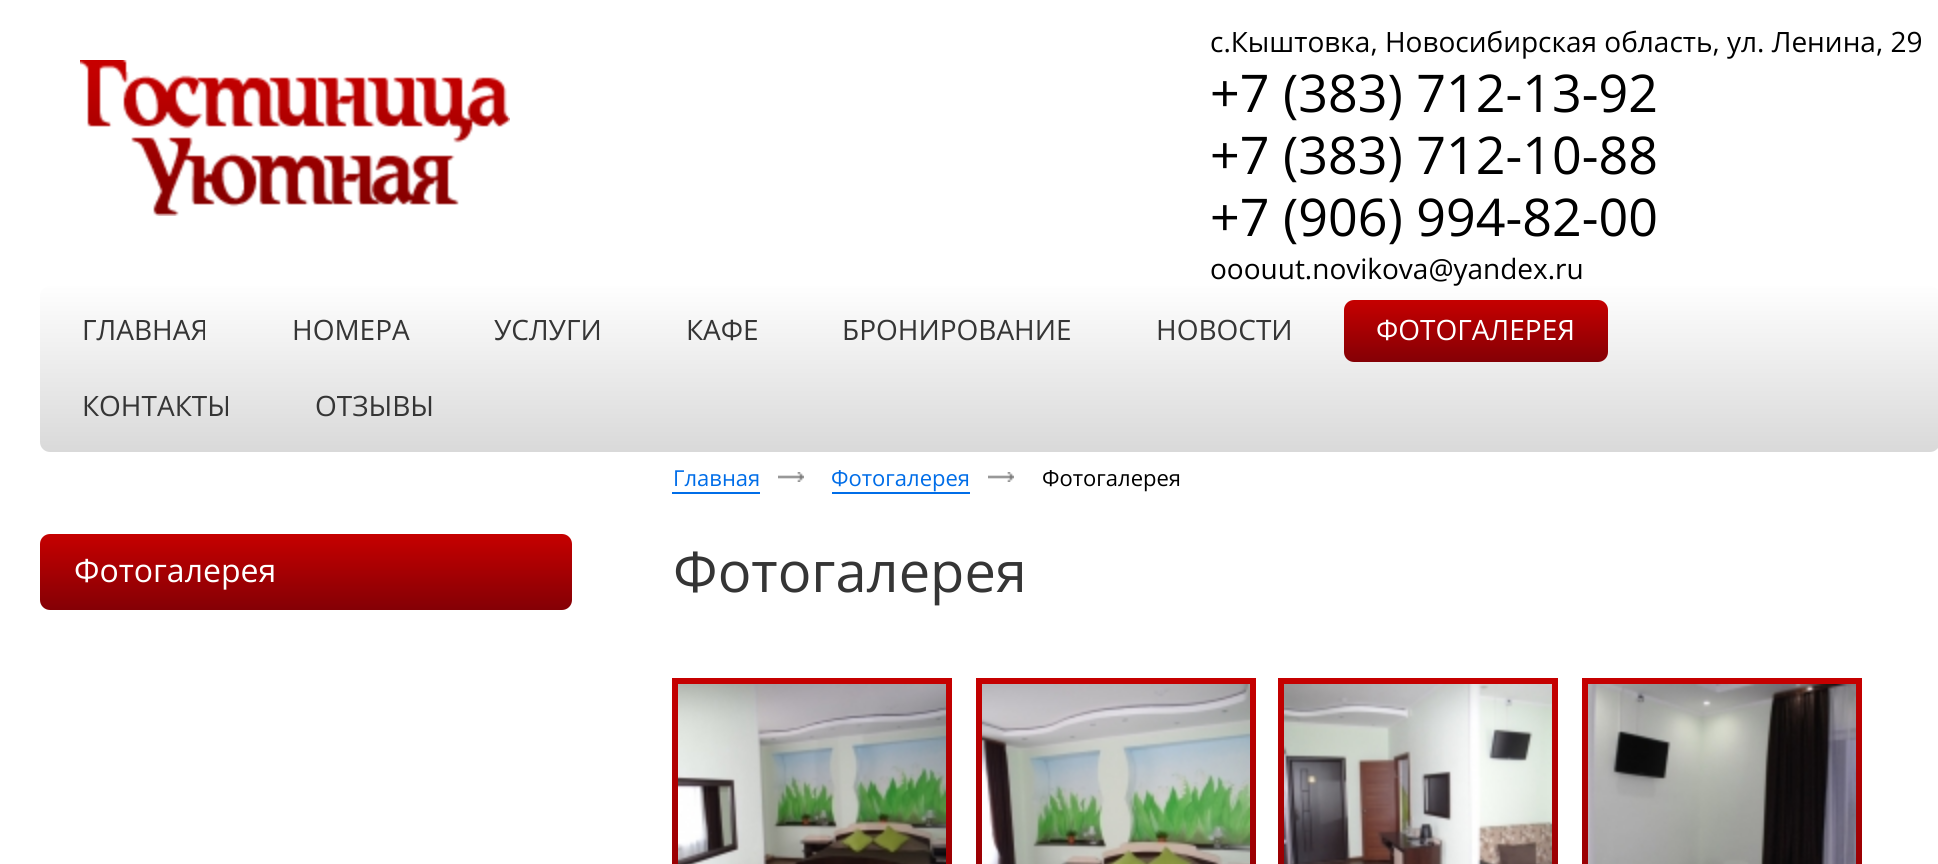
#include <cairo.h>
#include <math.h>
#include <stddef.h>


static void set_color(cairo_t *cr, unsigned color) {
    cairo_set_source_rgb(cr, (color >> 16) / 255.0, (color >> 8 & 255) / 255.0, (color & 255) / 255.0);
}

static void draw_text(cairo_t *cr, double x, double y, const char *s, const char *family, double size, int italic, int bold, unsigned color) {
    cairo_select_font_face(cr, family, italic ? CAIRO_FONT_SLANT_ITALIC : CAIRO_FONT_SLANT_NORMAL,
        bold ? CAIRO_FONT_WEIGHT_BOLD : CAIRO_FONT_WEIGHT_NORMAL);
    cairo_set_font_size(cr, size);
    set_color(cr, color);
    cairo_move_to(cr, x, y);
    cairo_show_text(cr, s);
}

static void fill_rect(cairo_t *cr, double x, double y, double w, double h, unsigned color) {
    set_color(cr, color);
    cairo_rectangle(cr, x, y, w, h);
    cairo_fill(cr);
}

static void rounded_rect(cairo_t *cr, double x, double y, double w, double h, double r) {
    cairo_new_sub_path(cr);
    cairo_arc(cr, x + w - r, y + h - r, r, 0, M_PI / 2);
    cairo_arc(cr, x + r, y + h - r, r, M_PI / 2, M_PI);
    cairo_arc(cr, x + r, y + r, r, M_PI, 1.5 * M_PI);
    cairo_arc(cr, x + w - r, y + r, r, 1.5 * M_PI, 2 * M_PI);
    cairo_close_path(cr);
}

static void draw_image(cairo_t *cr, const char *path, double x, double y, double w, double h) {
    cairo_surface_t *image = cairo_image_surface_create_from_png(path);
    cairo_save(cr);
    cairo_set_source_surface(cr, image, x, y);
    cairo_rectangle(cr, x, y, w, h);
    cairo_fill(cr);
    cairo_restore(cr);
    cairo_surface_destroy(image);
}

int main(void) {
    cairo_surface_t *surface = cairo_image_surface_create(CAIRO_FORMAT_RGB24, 1938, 864);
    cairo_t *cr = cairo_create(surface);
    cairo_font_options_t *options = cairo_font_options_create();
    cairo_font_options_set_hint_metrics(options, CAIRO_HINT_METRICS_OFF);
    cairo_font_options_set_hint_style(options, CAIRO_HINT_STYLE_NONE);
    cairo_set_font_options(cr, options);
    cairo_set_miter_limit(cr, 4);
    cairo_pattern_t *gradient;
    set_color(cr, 0xFFFFFF);
    cairo_paint(cr);
    draw_image(cr, "assets/img1.png", 80, 60, 430, 156);
    draw_text(cr, 1210, 52, "с.Кыштовка, Новосибирская область, ул. Ленина, 29", "Open Sans", 28, 0, 0, 0x000000);
    draw_text(cr, 1210, 112, "+7 (383) 712-13-92", "Open Sans", 52, 0, 0, 0x000000);
    draw_text(cr, 1210, 174, "+7 (383) 712-10-88", "Open Sans", 52, 0, 0, 0x000000);
    draw_text(cr, 1210, 236, "+7 (906) 994-82-00", "Open Sans", 52, 0, 0, 0x000000);
    draw_text(cr, 1210, 279, "ooouut.novikova@yandex.ru", "Open Sans", 28, 0, 0, 0x000000);
    gradient = cairo_pattern_create_linear(990, 452, 990, 286);
    cairo_pattern_add_color_stop_rgba(gradient, 0, 0.851, 0.851, 0.851, 1);
    cairo_pattern_add_color_stop_rgba(gradient, 1, 0.996, 0.996, 0.996, 1);
    cairo_set_source(cr, gradient);
    cairo_pattern_destroy(gradient);
    rounded_rect(cr, 40, 286, 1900, 166, 10);
    cairo_fill(cr);
    draw_text(cr, 82, 340, "ГЛАВНАЯ", "Open Sans", 28, 0, 0, 0x353535);
    draw_text(cr, 292, 340, "НОМЕРА", "Open Sans", 28, 0, 0, 0x353535);
    draw_text(cr, 494, 340, "УСЛУГИ", "Open Sans", 28, 0, 0, 0x353535);
    draw_text(cr, 686, 340, "КАФЕ", "Open Sans", 28, 0, 0, 0x353535);
    draw_text(cr, 842, 340, "БРОНИРОВАНИЕ", "Open Sans", 28, 0, 0, 0x353535);
    draw_text(cr, 1156, 340, "НОВОСТИ", "Open Sans", 28, 0, 0, 0x353535);
    gradient = cairo_pattern_create_linear(1476, 300, 1476, 362);
    cairo_pattern_add_color_stop_rgba(gradient, 0, 0.776, 0, 0, 1);
    cairo_pattern_add_color_stop_rgba(gradient, 1, 0.518, 0, 0.02, 1);
    cairo_set_source(cr, gradient);
    cairo_pattern_destroy(gradient);
    rounded_rect(cr, 1344, 300, 264, 62, 10);
    cairo_fill(cr);
    draw_text(cr, 1376, 340, "ФОТОГАЛЕРЕЯ", "Open Sans", 28, 0, 0, 0xFFFFFF);
    draw_text(cr, 82, 416, "КОНТАКТЫ", "Open Sans", 28, 0, 0, 0x353535);
    draw_text(cr, 315, 416, "ОТЗЫВЫ", "Open Sans", 28, 0, 0, 0x353535);
    gradient = cairo_pattern_create_linear(306, 534, 306, 610);
    cairo_pattern_add_color_stop_rgba(gradient, 0, 0.776, 0, 0, 1);
    cairo_pattern_add_color_stop_rgba(gradient, 1, 0.518, 0, 0.02, 1);
    cairo_set_source(cr, gradient);
    cairo_pattern_destroy(gradient);
    rounded_rect(cr, 40, 534, 532, 76, 10);
    cairo_fill(cr);
    draw_text(cr, 74, 582, "Фотогалерея", "Open Sans", 32, 0, 0, 0xFFFFFF);
    draw_text(cr, 673, 486, "Главная", "Open Sans", 22, 0, 0, 0x006DE8);
    fill_rect(cr, 672, 492, 88, 2, 0x006DE8);
    draw_image(cr, "assets/img2.png", 778, 472, 26, 10);
    draw_text(cr, 831, 486, "Фотогалерея", "Open Sans", 22, 0, 0, 0x006DE8);
    fill_rect(cr, 832, 492, 138, 2, 0x006DE8);
    draw_image(cr, "assets/img2.png", 988, 472, 26, 10);
    draw_text(cr, 1042, 486, "Фотогалерея", "Open Sans", 22, 0, 0, 0x000000);
    draw_text(cr, 673, 592, "Фотогалерея", "Open Sans", 56, 0, 0, 0x353535);
    gradient = cairo_pattern_create_linear(812, 678, 812, 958);
    cairo_pattern_add_color_stop_rgba(gradient, 0, 0.776, 0, 0, 1);
    cairo_pattern_add_color_stop_rgba(gradient, 1, 0.518, 0, 0.02, 1);
    cairo_set_source(cr, gradient);
    cairo_pattern_destroy(gradient);
    cairo_rectangle(cr, 672, 678, 280, 186);
    cairo_fill(cr);
    draw_image(cr, "assets/img3.png", 678, 684, 268, 180);
    gradient = cairo_pattern_create_linear(1116, 678, 1116, 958);
    cairo_pattern_add_color_stop_rgba(gradient, 0, 0.776, 0, 0, 1);
    cairo_pattern_add_color_stop_rgba(gradient, 1, 0.518, 0, 0.02, 1);
    cairo_set_source(cr, gradient);
    cairo_pattern_destroy(gradient);
    cairo_rectangle(cr, 976, 678, 280, 186);
    cairo_fill(cr);
    draw_image(cr, "assets/img4.png", 982, 684, 268, 180);
    gradient = cairo_pattern_create_linear(1418, 678, 1418, 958);
    cairo_pattern_add_color_stop_rgba(gradient, 0, 0.776, 0, 0, 1);
    cairo_pattern_add_color_stop_rgba(gradient, 1, 0.518, 0, 0.02, 1);
    cairo_set_source(cr, gradient);
    cairo_pattern_destroy(gradient);
    cairo_rectangle(cr, 1278, 678, 280, 186);
    cairo_fill(cr);
    draw_image(cr, "assets/img5.png", 1284, 684, 268, 180);
    gradient = cairo_pattern_create_linear(1722, 678, 1722, 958);
    cairo_pattern_add_color_stop_rgba(gradient, 0, 0.776, 0, 0, 1);
    cairo_pattern_add_color_stop_rgba(gradient, 1, 0.518, 0, 0.02, 1);
    cairo_set_source(cr, gradient);
    cairo_pattern_destroy(gradient);
    cairo_rectangle(cr, 1582, 678, 280, 186);
    cairo_fill(cr);
    draw_image(cr, "assets/img6.png", 1588, 684, 268, 180);
    cairo_surface_write_to_png(surface, "output.png");
    cairo_font_options_destroy(options);
    cairo_destroy(cr);
    cairo_surface_destroy(surface);
    return 0;
}
